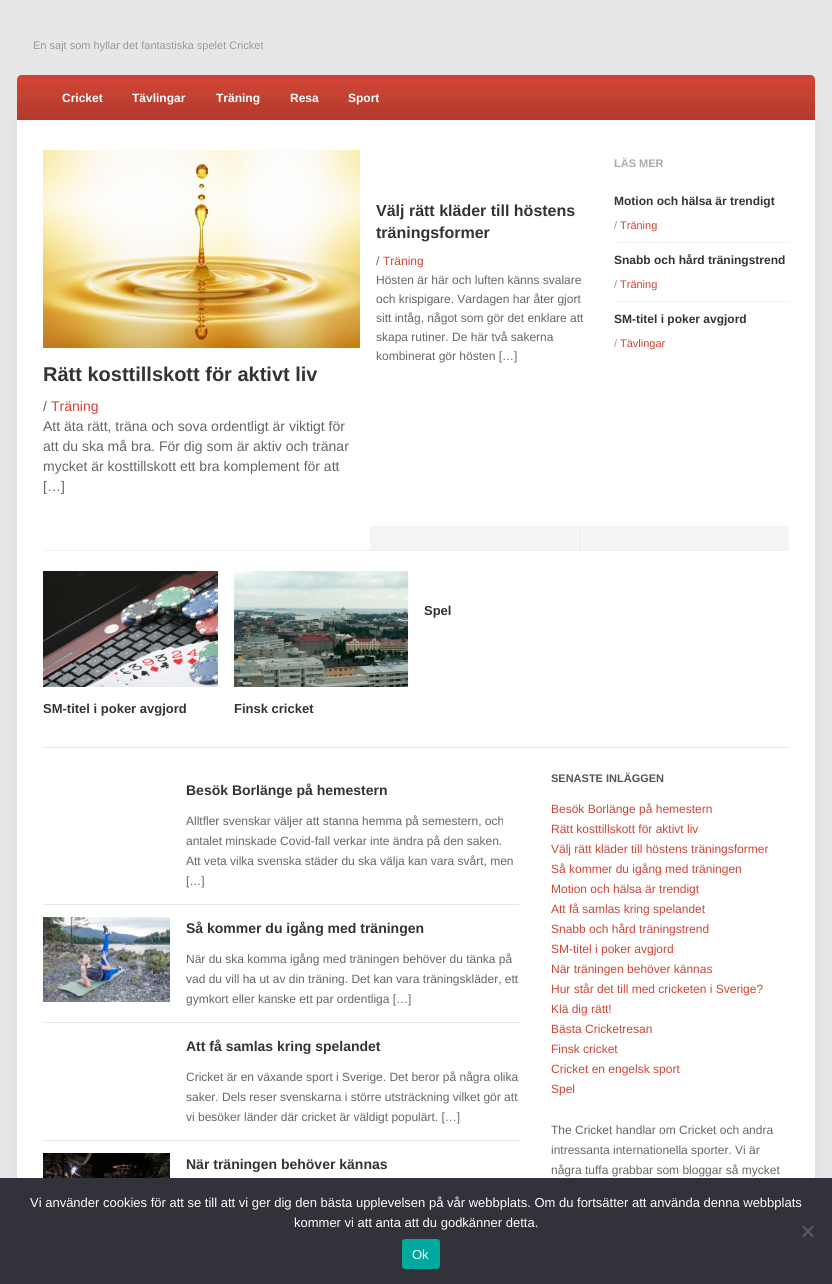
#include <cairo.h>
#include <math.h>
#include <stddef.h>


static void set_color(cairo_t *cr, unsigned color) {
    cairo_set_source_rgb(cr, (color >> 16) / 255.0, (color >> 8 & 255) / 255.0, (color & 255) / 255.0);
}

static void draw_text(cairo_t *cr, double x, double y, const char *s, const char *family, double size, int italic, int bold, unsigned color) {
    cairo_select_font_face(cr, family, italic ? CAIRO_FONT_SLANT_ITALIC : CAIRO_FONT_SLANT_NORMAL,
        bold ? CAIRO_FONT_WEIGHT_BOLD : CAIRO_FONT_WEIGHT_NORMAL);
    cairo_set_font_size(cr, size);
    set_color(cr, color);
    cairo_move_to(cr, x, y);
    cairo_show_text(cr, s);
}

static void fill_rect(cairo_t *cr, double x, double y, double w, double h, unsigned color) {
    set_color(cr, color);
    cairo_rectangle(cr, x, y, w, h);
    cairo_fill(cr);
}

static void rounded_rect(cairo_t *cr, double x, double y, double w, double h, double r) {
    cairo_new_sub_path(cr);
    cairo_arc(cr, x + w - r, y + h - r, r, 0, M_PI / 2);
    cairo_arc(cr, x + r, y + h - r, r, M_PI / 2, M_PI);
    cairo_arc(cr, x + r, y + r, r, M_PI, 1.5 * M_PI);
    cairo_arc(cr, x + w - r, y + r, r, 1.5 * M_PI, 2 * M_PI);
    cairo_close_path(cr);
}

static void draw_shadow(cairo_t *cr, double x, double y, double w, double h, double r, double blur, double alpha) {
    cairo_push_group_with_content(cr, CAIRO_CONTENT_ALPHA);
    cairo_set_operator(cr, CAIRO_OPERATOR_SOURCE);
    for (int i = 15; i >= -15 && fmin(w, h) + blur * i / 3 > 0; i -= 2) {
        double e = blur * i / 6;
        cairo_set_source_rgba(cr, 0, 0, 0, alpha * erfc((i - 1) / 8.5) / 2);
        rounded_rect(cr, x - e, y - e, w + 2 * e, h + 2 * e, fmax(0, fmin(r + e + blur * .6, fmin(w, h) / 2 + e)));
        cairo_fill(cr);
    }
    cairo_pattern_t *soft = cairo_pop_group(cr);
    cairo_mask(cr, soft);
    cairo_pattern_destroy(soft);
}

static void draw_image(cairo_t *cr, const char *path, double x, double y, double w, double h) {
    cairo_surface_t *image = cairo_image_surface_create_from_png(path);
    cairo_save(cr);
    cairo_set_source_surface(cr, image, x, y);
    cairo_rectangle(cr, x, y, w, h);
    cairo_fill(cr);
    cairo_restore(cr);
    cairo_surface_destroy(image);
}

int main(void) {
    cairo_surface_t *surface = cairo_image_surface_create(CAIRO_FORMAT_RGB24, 832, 1284);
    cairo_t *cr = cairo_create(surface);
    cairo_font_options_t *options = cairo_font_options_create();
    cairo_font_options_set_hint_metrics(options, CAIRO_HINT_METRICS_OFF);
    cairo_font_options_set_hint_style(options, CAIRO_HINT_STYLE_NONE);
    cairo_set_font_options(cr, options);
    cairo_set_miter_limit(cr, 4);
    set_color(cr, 0xE7E7E7);
    cairo_paint(cr);
    draw_text(cr, 33, 49, "En sajt som hyllar det fantastiska spelet Cricket", "Liberation Sans", 11, 0, 0, 0x999999);
    set_color(cr, 0xDCDCDC);
    draw_shadow(cr, 17, 120, 798, 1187, 0, 7.5, 1);
    set_color(cr, 0xD14334);
    cairo_new_path(cr);
    cairo_move_to(cr, 22, 75);
    cairo_line_to(cr, 810, 75);
    cairo_curve_to(cr, 813, 75, 815, 77, 815, 80);
    cairo_line_to(cr, 815, 120);
    cairo_line_to(cr, 17, 120);
    cairo_line_to(cr, 17, 80);
    cairo_curve_to(cr, 17, 77, 19, 75, 22, 75);
    cairo_close_path(cr);
    cairo_fill(cr);
    draw_image(cr, "assets/img1.png", 17, 83, 798, 37);
    draw_text(cr, 62, 102, "Cricket", "Liberation Sans", 12, 0, 1, 0xFFFFFF);
    draw_text(cr, 132, 102, "Tävlingar", "Liberation Sans", 12, 0, 1, 0xFFFFFF);
    draw_text(cr, 216, 102, "Träning", "Liberation Sans", 12, 0, 1, 0xFFFFFF);
    draw_text(cr, 290, 102, "Resa", "Liberation Sans", 12, 0, 1, 0xFFFFFF);
    draw_text(cr, 348, 102, "Sport", "Liberation Sans", 12, 0, 1, 0xFFFFFF);
    fill_rect(cr, 17, 120, 798, 1058, 0xFFFFFF);
    draw_text(cr, 376, 216, "Välj rätt kläder till höstens", "Liberation Sans", 16, 0, 1, 0x333333);
    draw_text(cr, 376, 238, "träningsformer", "Liberation Sans", 16, 0, 1, 0x333333);
    draw_text(cr, 376, 265, "/", "Liberation Sans", 12, 0, 0, 0x666666);
    draw_text(cr, 383, 265, "Träning", "Liberation Sans", 12, 0, 0, 0xD14334);
    draw_text(cr, 376, 284, "Hösten är här och luften känns svalare", "Liberation Sans", 12, 0, 0, 0x666666);
    draw_text(cr, 376, 303, "och krispigare. Vardagen har åter gjort", "Liberation Sans", 12, 0, 0, 0x666666);
    draw_text(cr, 376, 322, "sitt intåg, något som gör det enklare att", "Liberation Sans", 12, 0, 0, 0x666666);
    draw_text(cr, 376, 341, "skapa rutiner. De här två sakerna", "Liberation Sans", 12, 0, 0, 0x666666);
    draw_text(cr, 376, 360, "kombinerat gör hösten […]", "Liberation Sans", 12, 0, 0, 0x666666);
    draw_text(cr, 614, 167, "LÄS MER", "Liberation Sans", 11, 0, 1, 0xAAAAAA);
    fill_rect(cr, 614, 242, 175, 1, 0xF1F1F1);
    draw_text(cr, 614, 205, "Motion och hälsa är trendigt", "Liberation Sans", 12, 0, 1, 0x333333);
    draw_text(cr, 614, 229, "/", "Liberation Sans", 11, 0, 0, 0x999999);
    draw_text(cr, 620, 229, "Träning", "Liberation Sans", 11, 0, 0, 0xD14334);
    fill_rect(cr, 614, 301, 175, 1, 0xF1F1F1);
    draw_text(cr, 614, 264, "Snabb och hård träningstrend", "Liberation Sans", 12, 0, 1, 0x333333);
    draw_text(cr, 614, 288, "/", "Liberation Sans", 11, 0, 0, 0x999999);
    draw_text(cr, 620, 288, "Träning", "Liberation Sans", 11, 0, 0, 0xD14334);
    draw_text(cr, 614, 323, "SM-titel i poker avgjord", "Liberation Sans", 12, 0, 1, 0x333333);
    draw_text(cr, 614, 347, "/", "Liberation Sans", 11, 0, 0, 0x999999);
    draw_text(cr, 620, 347, "Tävlingar", "Liberation Sans", 11, 0, 0, 0xD14334);
    draw_image(cr, "assets/img2.png", 43, 150, 317, 198);
    draw_text(cr, 43, 381, "Rätt kosttillskott för aktivt liv", "Liberation Sans", 20, 0, 1, 0x333333);
    draw_text(cr, 43, 411, "/", "Liberation Sans", 14, 0, 0, 0x666666);
    draw_text(cr, 51, 411, "Träning", "Liberation Sans", 14, 0, 0, 0xD14334);
    draw_text(cr, 43, 431, "Att äta rätt, träna och sova ordentligt är viktigt för", "Liberation Sans", 14, 0, 0, 0x666666);
    draw_text(cr, 43, 451, "att du ska må bra. För dig som är aktiv och tränar", "Liberation Sans", 14, 0, 0, 0x666666);
    draw_text(cr, 43, 471, "mycket är kosttillskott ett bra komplement för att", "Liberation Sans", 14, 0, 0, 0x666666);
    draw_text(cr, 43, 491, "[…]", "Liberation Sans", 14, 0, 0, 0x666666);
    fill_rect(cr, 370, 526, 419, 24, 0xF4F4F4);
    draw_image(cr, "assets/img3.png", 578, 526, 2, 24);
    fill_rect(cr, 43, 550, 746, 1, 0xF1F1F1);
    fill_rect(cr, 43, 747, 746, 1, 0xE6E6E6);
    draw_text(cr, 424, 615, "Spel", "Liberation Sans", 13, 0, 1, 0x333333);
    draw_image(cr, "assets/img4.png", 43, 571, 175, 116);
    draw_text(cr, 43, 713, "SM-titel i poker avgjord", "Liberation Sans", 13, 0, 1, 0x333333);
    draw_image(cr, "assets/img5.png", 234, 571, 174, 116);
    draw_text(cr, 234, 713, "Finsk cricket", "Liberation Sans", 13, 0, 1, 0x333333);
    fill_rect(cr, 43, 904, 476, 1, 0xE6E6E6);
    draw_text(cr, 186, 795, "Besök Borlänge på hemestern", "Liberation Sans", 14, 0, 1, 0x333333);
    draw_text(cr, 186, 825, "Alltfler svenskar väljer att stanna hemma på semestern, och", "Liberation Sans", 12, 0, 0, 0x666666);
    draw_text(cr, 186, 845, "antalet minskade Covid-fall verkar inte ändra på den saken.", "Liberation Sans", 12, 0, 0, 0x666666);
    draw_text(cr, 186, 865, "Att veta vilka svenska städer du ska välja kan vara svårt, men", "Liberation Sans", 12, 0, 0, 0x666666);
    draw_text(cr, 186, 885, "[…]", "Liberation Sans", 12, 0, 0, 0x666666);
    fill_rect(cr, 43, 1022, 476, 1, 0xE6E6E6);
    draw_image(cr, "assets/img6.png", 43, 917, 127, 85);
    draw_text(cr, 186, 933, "Så kommer du igång med träningen", "Liberation Sans", 14, 0, 1, 0x333333);
    draw_text(cr, 186, 963, "När du ska komma igång med träningen behöver du tänka på", "Liberation Sans", 12, 0, 0, 0x666666);
    draw_text(cr, 186, 983, "vad du vill ha ut av din träning. Det kan vara träningskläder, ett", "Liberation Sans", 12, 0, 0, 0x666666);
    draw_text(cr, 186, 1003, "gymkort eller kanske ett par ordentliga […]", "Liberation Sans", 12, 0, 0, 0x666666);
    fill_rect(cr, 43, 1140, 476, 1, 0xE6E6E6);
    draw_text(cr, 186, 1051, "Att få samlas kring spelandet", "Liberation Sans", 14, 0, 1, 0x333333);
    draw_text(cr, 186, 1081, "Cricket är en växande sport i Sverige. Det beror på några olika", "Liberation Sans", 12, 0, 0, 0x666666);
    draw_text(cr, 186, 1101, "saker. Dels reser svenskarna i större utsträckning vilket gör att", "Liberation Sans", 12, 0, 0, 0x666666);
    draw_text(cr, 186, 1121, "vi besöker länder där cricket är väldigt populärt. […]", "Liberation Sans", 12, 0, 0, 0x666666);
    draw_image(cr, "assets/img7.png", 43, 1153, 127, 25);
    draw_text(cr, 186, 1169, "När träningen behöver kännas", "Liberation Sans", 14, 0, 1, 0x333333);
    draw_text(cr, 551, 782, "SENASTE INLÄGGEN", "Liberation Sans", 11, 0, 1, 0x555555);
    draw_text(cr, 551, 813, "Besök Borlänge på hemestern", "Liberation Sans", 12, 0, 0, 0xD14334);
    draw_text(cr, 551, 833, "Rätt kosttillskott för aktivt liv", "Liberation Sans", 12, 0, 0, 0xD14334);
    draw_text(cr, 551, 853, "Välj rätt kläder till höstens träningsformer", "Liberation Sans", 12, 0, 0, 0xD14334);
    draw_text(cr, 551, 873, "Så kommer du igång med träningen", "Liberation Sans", 12, 0, 0, 0xD14334);
    draw_text(cr, 551, 893, "Motion och hälsa är trendigt", "Liberation Sans", 12, 0, 0, 0xD14334);
    draw_text(cr, 551, 913, "Att få samlas kring spelandet", "Liberation Sans", 12, 0, 0, 0xD14334);
    draw_text(cr, 551, 933, "Snabb och hård träningstrend", "Liberation Sans", 12, 0, 0, 0xD14334);
    draw_text(cr, 551, 953, "SM-titel i poker avgjord", "Liberation Sans", 12, 0, 0, 0xD14334);
    draw_text(cr, 551, 973, "När träningen behöver kännas", "Liberation Sans", 12, 0, 0, 0xD14334);
    draw_text(cr, 551, 993, "Hur står det till med cricketen i Sverige?", "Liberation Sans", 12, 0, 0, 0xD14334);
    draw_text(cr, 551, 1013, "Klä dig rätt!", "Liberation Sans", 12, 0, 0, 0xD14334);
    draw_text(cr, 551, 1033, "Bästa Cricketresan", "Liberation Sans", 12, 0, 0, 0xD14334);
    draw_text(cr, 551, 1053, "Finsk cricket", "Liberation Sans", 12, 0, 0, 0xD14334);
    draw_text(cr, 551, 1073, "Cricket en engelsk sport", "Liberation Sans", 12, 0, 0, 0xD14334);
    draw_text(cr, 551, 1093, "Spel", "Liberation Sans", 12, 0, 0, 0xD14334);
    draw_text(cr, 551, 1134, "The Cricket handlar om Cricket och andra", "Liberation Sans", 12, 0, 0, 0x666666);
    draw_text(cr, 551, 1154, "intressanta internationella sporter. Vi är", "Liberation Sans", 12, 0, 0, 0x666666);
    draw_text(cr, 551, 1174, "några tuffa grabbar som bloggar så mycket", "Liberation Sans", 12, 0, 0, 0x666666);
    fill_rect(cr, 0, 1178, 832, 106, 0x32323A);
    draw_text(cr, 30, 1207, "Vi använder cookies för att se till att vi ger dig den bästa upplevelsen på vår webbplats. Om du fortsätter att använda denna webbplats", "Liberation Sans", 13, 0, 0, 0xFFFFFF);
    draw_text(cr, 294, 1227, "kommer vi att anta att du godkänner detta.", "Liberation Sans", 13, 0, 0, 0xFFFFFF);
    set_color(cr, 0x59595D);
    cairo_new_path(cr);
    cairo_move_to(cr, 812.5, 1225.5);
    cairo_line_to(cr, 814, 1227);
    cairo_line_to(cr, 803.5, 1237.5);
    cairo_line_to(cr, 802, 1236);
    cairo_close_path(cr);
    cairo_fill(cr);
    cairo_new_path(cr);
    cairo_move_to(cr, 802, 1227);
    cairo_line_to(cr, 803.5, 1225.5);
    cairo_line_to(cr, 814, 1236);
    cairo_line_to(cr, 812.5, 1237.5);
    cairo_close_path(cr);
    cairo_fill(cr);
    set_color(cr, 0x00A99D);
    rounded_rect(cr, 402, 1239, 38, 30, 3);
    cairo_fill(cr);
    draw_text(cr, 412, 1259, "Ok", "Liberation Sans", 13, 0, 0, 0xFFFFFF);
    cairo_surface_write_to_png(surface, "output.png");
    cairo_font_options_destroy(options);
    cairo_destroy(cr);
    cairo_surface_destroy(surface);
    return 0;
}
